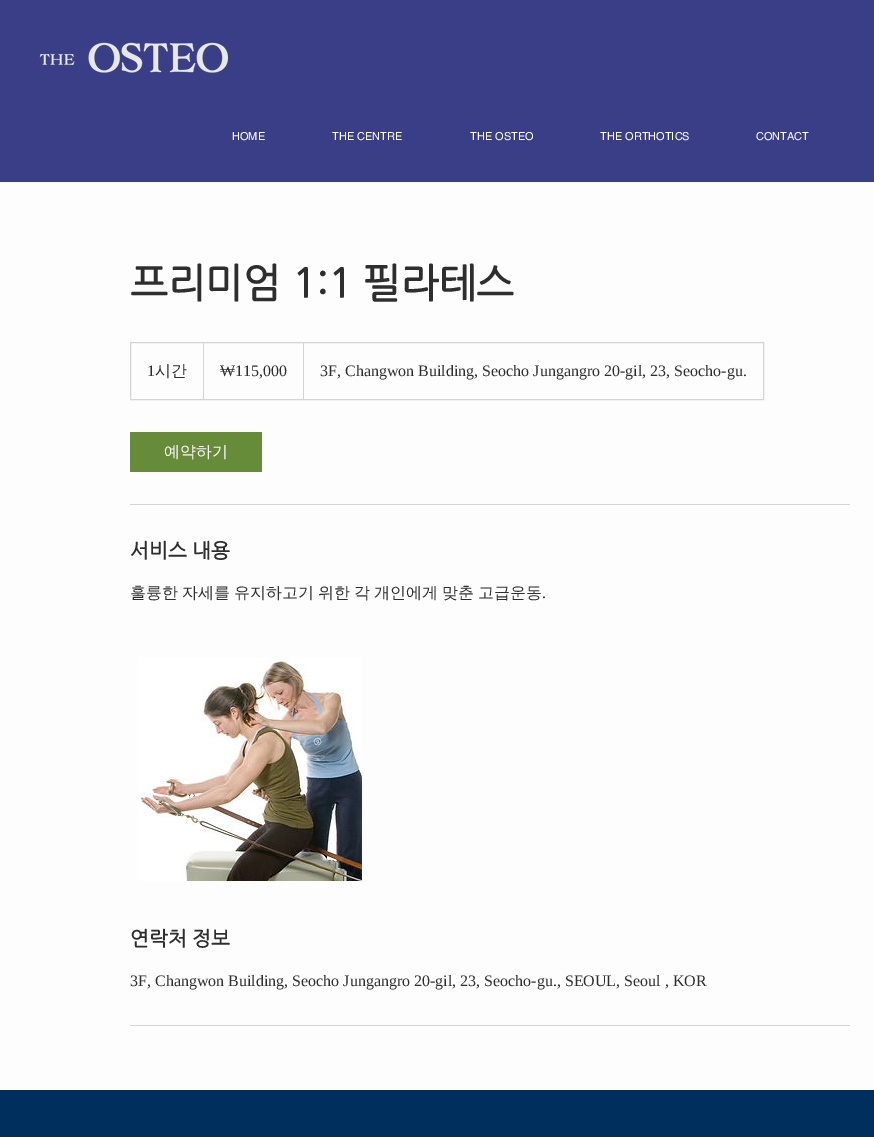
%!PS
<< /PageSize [874 1137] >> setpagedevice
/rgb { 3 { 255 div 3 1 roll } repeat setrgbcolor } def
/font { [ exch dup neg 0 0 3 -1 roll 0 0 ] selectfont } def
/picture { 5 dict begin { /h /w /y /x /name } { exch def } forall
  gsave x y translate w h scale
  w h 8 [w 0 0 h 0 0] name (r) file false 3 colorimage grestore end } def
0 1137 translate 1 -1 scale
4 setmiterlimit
254 253 253 rgb
0 0 874 1137 rectfill
58 62 134 rgb
0 0 874 182 rectfill
(img/1.rgb) 39 42 189 31 picture
212 212 212 rgb
130.5 342.5 633 57 rectstroke
203 399 moveto 203 342 lineto 204 343 lineto 204 399 lineto closepath fill
303 399 moveto 303 342 lineto 304 343 lineto 304 399 lineto closepath fill
103 140 57 rgb
130 432 132 40 rectfill
212 212 212 rgb
130 504 720 1 rectfill
(img/2.rgb) 138 657 224 224 picture
130 1025 720 1 rectfill
0 46 93 rgb
0 1090 874 47 rectfill
/helvetica-Regular 11 font
254 253 253 rgb
[
  [(HOME) 232 140]
  [(THE CENTRE) 332 140]
  [(THE OSTEO) 470 140]
  [(THE ORTHOTICS) 600 140]
  [(CONTACT) 756 140]
] { aload pop moveto show } forall
/NanumGothic-Bold 40 font
46 46 46 rgb
130 296 moveto (프리미엄 1:1 필라테스) show
/LiberationSerif-Regular 16 font
147 376 moveto (1) show
/WenQuanYiZenHei-Medium 16 font
155 376 moveto (시간) show
/LiberationSerif-Regular 16 font
220 376 moveto (₩115,000) show
320 376 moveto (3F, Changwon Building, Seocho Jungangro 20-gil, 23, Seocho-gu.) show
/WenQuanYiZenHei-Medium 16 font
254 253 253 rgb
164 457 moveto (예약하기) show
/NanumGothic-Bold 20 font
46 46 46 rgb
130 557 moveto (서비스 내용) show
/WenQuanYiZenHei-Medium 16 font
130 598 moveto -0.75 0 32 (훌륭한 자세를 유지하고기 위한 각 개인에게 맞춘 고급운동) widthshow
/LiberationSerif-Regular 16 font
542 598 moveto (.) show
/NanumGothic-Bold 20 font
130 945 moveto (연락처 정보) show
/LiberationSerif-Regular 16 font
130 986 moveto (3F, Changwon Building, Seocho Jungangro 20-gil, 23, Seocho-gu., SEOUL, Seoul , KOR) show
showpage
